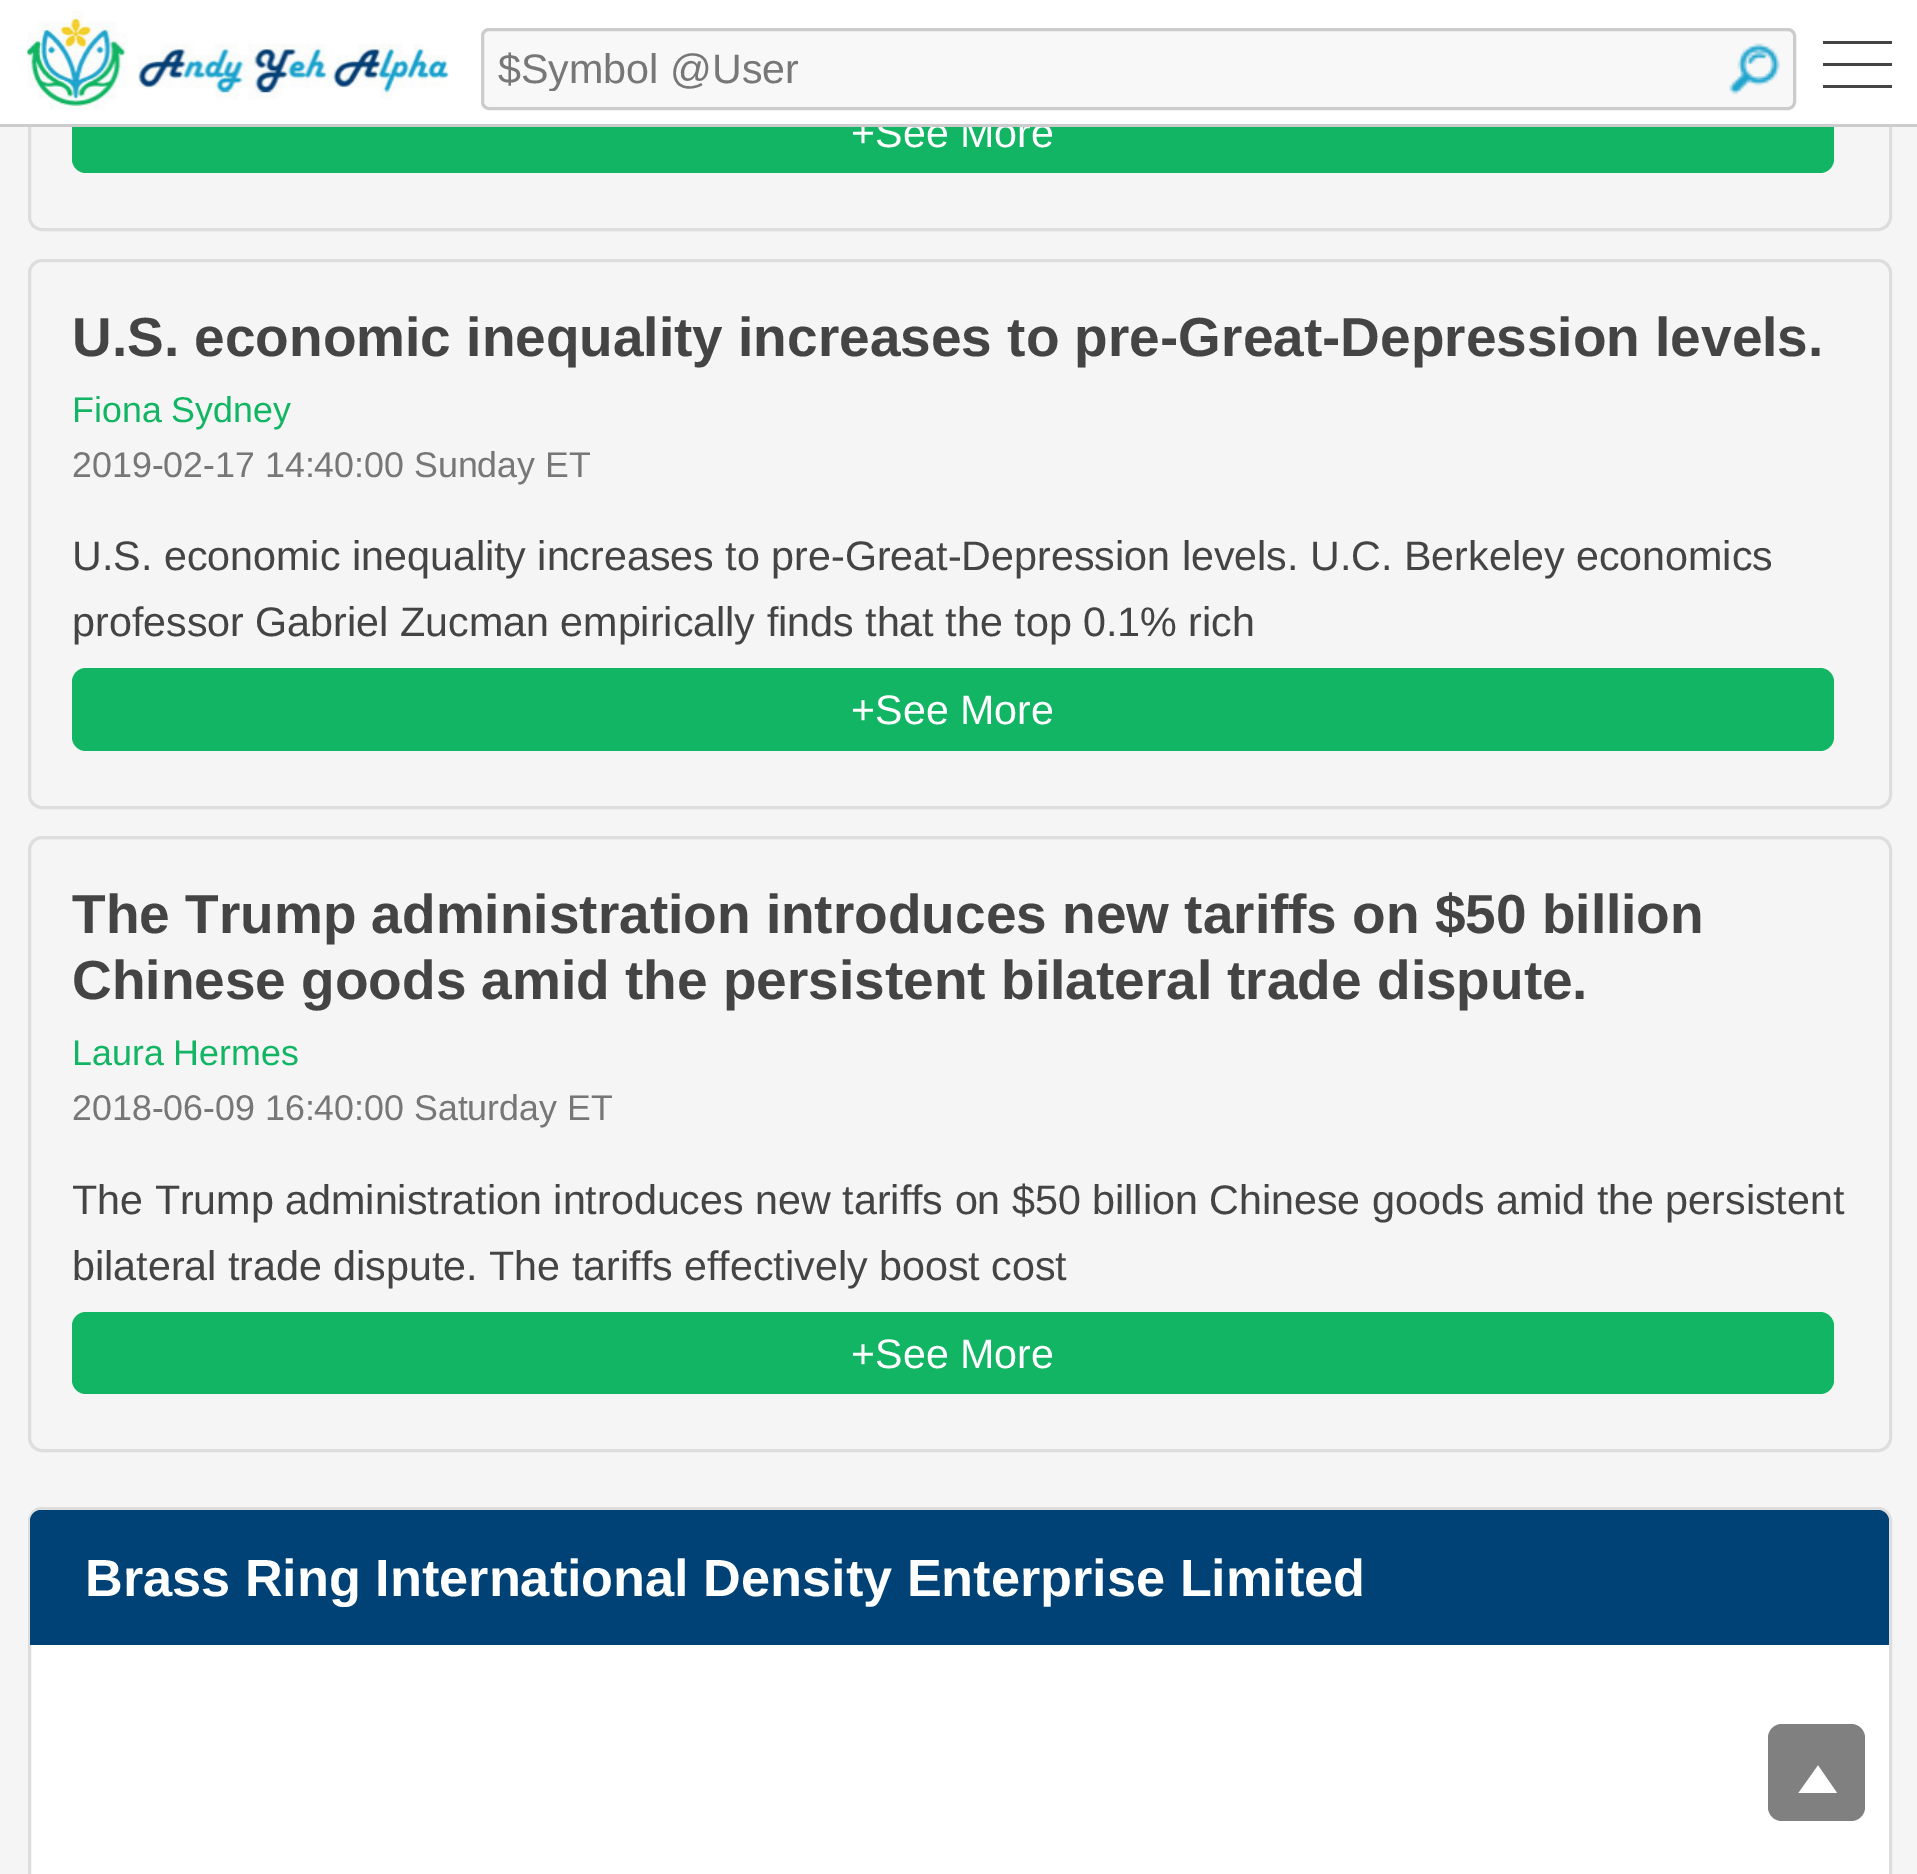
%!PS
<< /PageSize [1917 1874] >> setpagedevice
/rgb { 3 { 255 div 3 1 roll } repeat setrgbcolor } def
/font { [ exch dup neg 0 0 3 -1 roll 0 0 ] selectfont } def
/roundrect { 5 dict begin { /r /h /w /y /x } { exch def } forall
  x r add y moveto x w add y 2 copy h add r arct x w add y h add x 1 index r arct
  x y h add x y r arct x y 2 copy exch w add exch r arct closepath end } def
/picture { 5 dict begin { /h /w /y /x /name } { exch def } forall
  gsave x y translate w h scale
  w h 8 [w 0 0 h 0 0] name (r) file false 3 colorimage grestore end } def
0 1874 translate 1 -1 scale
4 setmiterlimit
245 245 245 rgb
0 0 1917 1874 rectfill
221 221 221 rgb
3 setlinewidth
29.5 -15.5 1861 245 12.5 roundrect stroke
18 181 99 rgb
72 91 1762 82 14 roundrect fill
255 255 255 rgb
0 0 1917 124 rectfill
(img/1.rgb) 27 11 422 99 picture
248 248 248 rgb
482.5 29.5 1312 79 6.5 roundrect gsave fill grestore
204 204 204 rgb
stroke
(img/2.rgb) 1729 43 52 52 picture
[
  [1823 41 69 3 68 68 68]
  [1823 63 69 3 68 68 68]
  [1823 85 69 3 68 68 68]
] { aload pop rgb rectfill } forall
221 221 221 rgb
29.5 260.5 1861 547 12.5 roundrect stroke
18 181 99 rgb
72 668 1762 83 14 roundrect fill
221 221 221 rgb
29.5 837.5 1861 613 12.5 roundrect stroke
18 181 99 rgb
72 1312 1762 82 14 roundrect fill
255 255 255 rgb
29.5 1508.5 1861 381 12.5 roundrect gsave fill grestore
221 221 221 rgb
stroke
0 66 118 rgb
41 1510 moveto 1878 1510 lineto 1884 1510 1889 1515 1889 1521 curveto 1889 1645 lineto 30 1645 lineto 30 1521 lineto 30 1515 35 1510 41 1510 curveto closepath fill
128 128 128 rgb
1768 1724 97 97 14 roundrect fill
255 255 255 rgb
1837 1793 moveto 1798.5 1793 lineto 1818 1765.5 lineto closepath fill
gsave
498 44 1213 47 rectclip
/LiberationSans-Regular 41.25 font
119 119 119 rgb
498 83 moveto ($Symbol @User) show
grestore
/LiberationSans-Regular 41.25 font
851 147 moveto (+See More) show
204 204 204 rgb
0 124 1917 3 rectfill
/LiberationSans-Bold 55 font
68 68 68 rgb
72 356 moveto (U.S. economic inequality increases to pre-Great-Depression levels.) show
/LiberationSans-Regular 35.75 font
18 181 99 rgb
72 422 moveto (Fiona Sydney) show
119 119 119 rgb
72 477 moveto (2019-02-17 14:40:00 Sunday ET) show
/LiberationSans-Regular 41.25 font
68 68 68 rgb
72 570 moveto (U.S. economic inequality increases to pre-Great-Depression levels. U.C. Berkeley economics) show
72 636 moveto (professor Gabriel Zucman empirically finds that the top 0.1% rich) show
255 255 255 rgb
851 724 moveto (+See More) show
/LiberationSans-Bold 55 font
68 68 68 rgb
72 933 moveto (The Trump administration introduces new tariffs on $50 billion) show
72 999 moveto (Chinese goods amid the persistent bilateral trade dispute.) show
/LiberationSans-Regular 35.75 font
18 181 99 rgb
72 1065 moveto (Laura Hermes) show
119 119 119 rgb
72 1120 moveto (2018-06-09 16:40:00 Saturday ET) show
/LiberationSans-Regular 41.25 font
68 68 68 rgb
72 1214 moveto (The Trump administration introduces new tariffs on $50 billion Chinese goods amid the persistent) show
72 1280 moveto (bilateral trade dispute. The tariffs effectively boost cost) show
255 255 255 rgb
851 1368 moveto (+See More) show
/LiberationSans-Bold 52.25 font
85 1596 moveto (Brass Ring International Density Enterprise Limited) show
showpage
